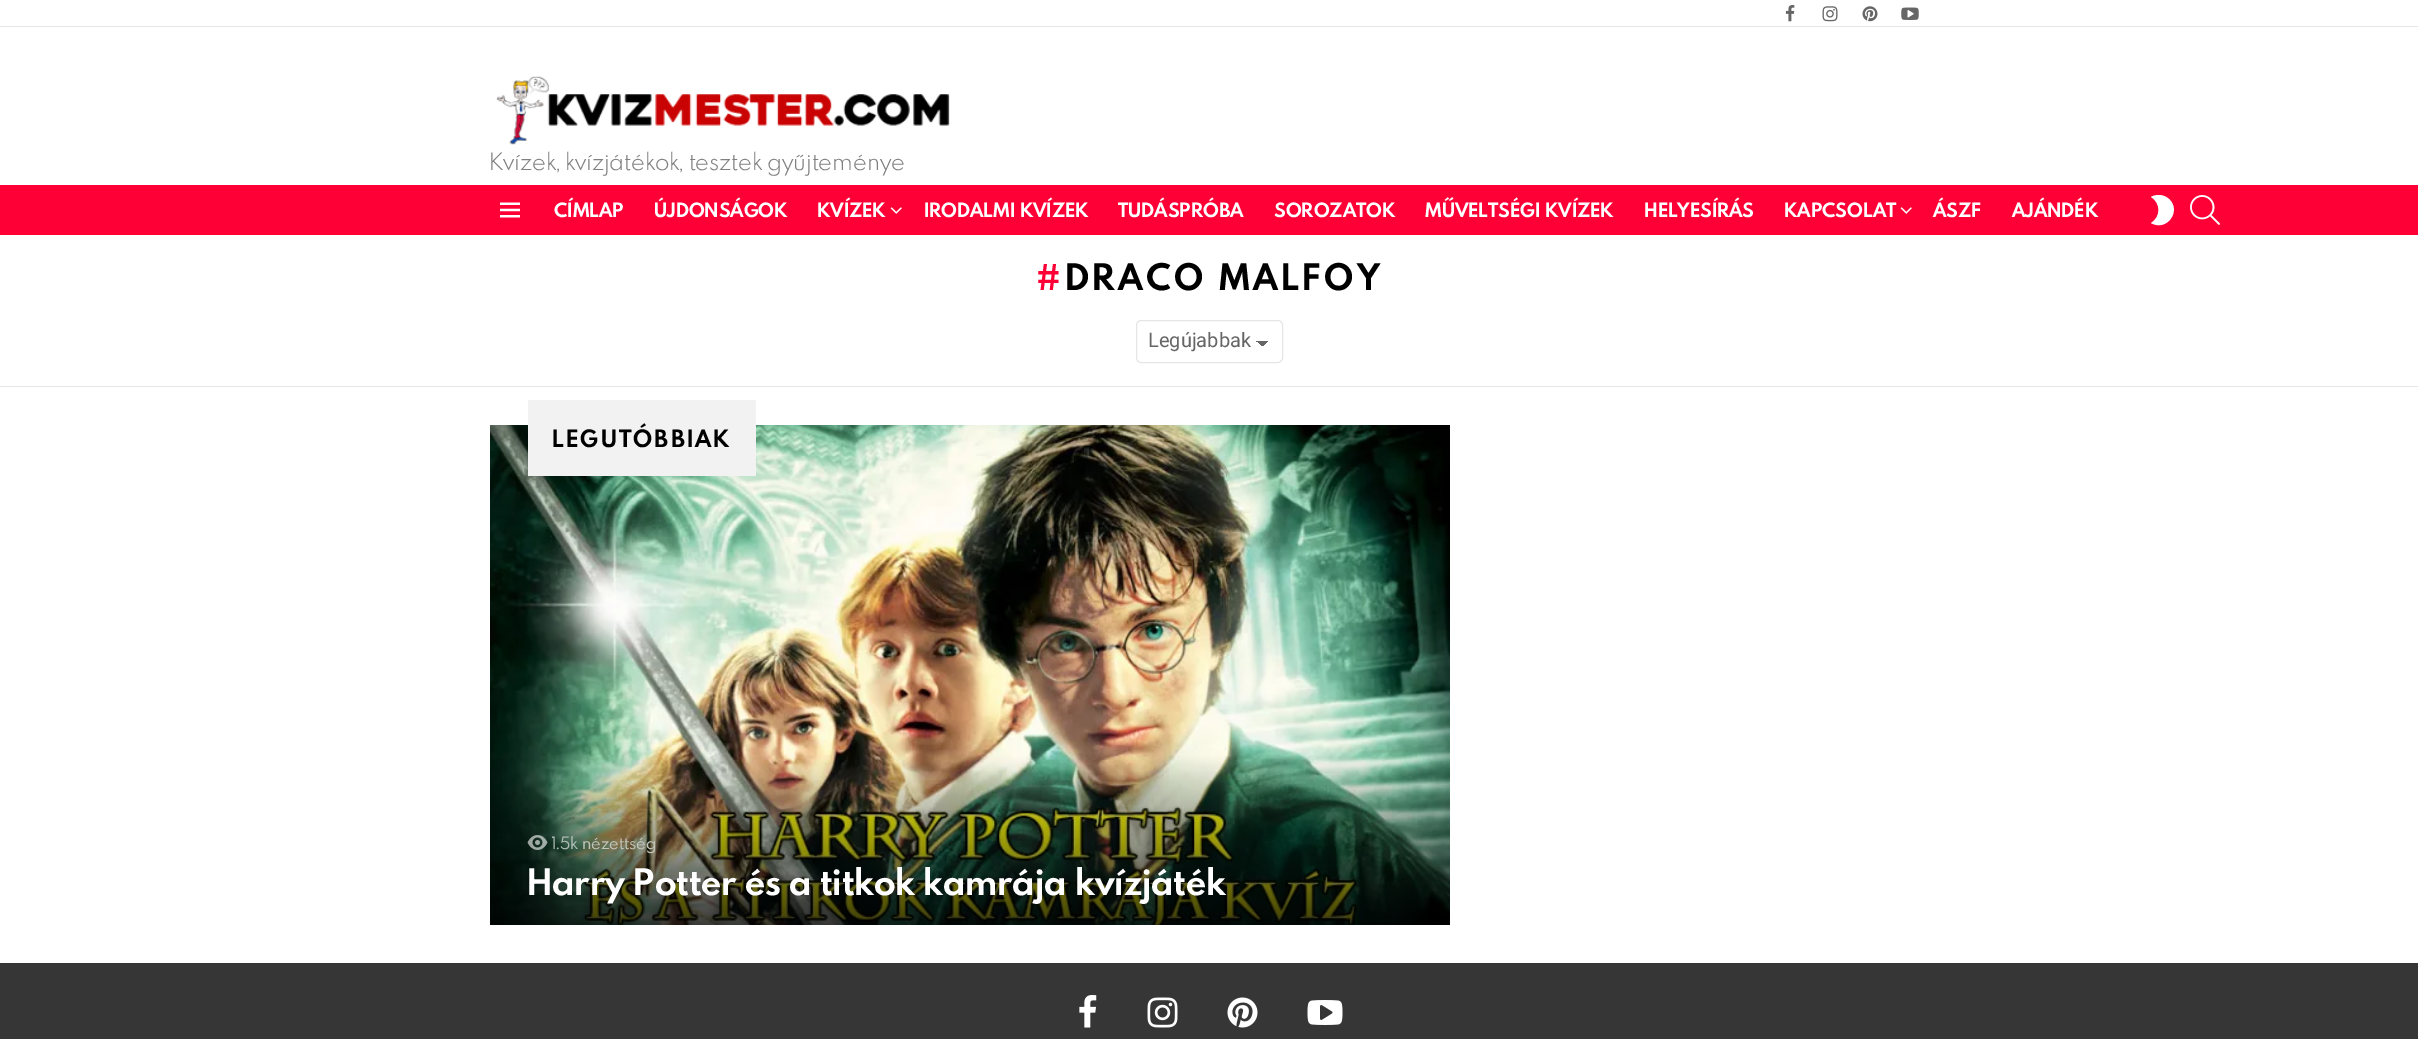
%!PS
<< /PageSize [2418 1039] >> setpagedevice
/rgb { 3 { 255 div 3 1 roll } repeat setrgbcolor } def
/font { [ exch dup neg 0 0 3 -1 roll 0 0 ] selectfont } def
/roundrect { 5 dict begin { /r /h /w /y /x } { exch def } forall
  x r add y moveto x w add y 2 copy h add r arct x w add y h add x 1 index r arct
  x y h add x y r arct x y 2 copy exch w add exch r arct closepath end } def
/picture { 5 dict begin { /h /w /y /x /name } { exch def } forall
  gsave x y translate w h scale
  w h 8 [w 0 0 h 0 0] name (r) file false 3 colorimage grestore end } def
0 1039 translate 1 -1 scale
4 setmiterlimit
255 255 255 rgb
0 0 2418 1039 rectfill
(img/1.rgb) 1785 5 10 17 picture
(img/2.rgb) 1822 6 16 16 picture
(img/3.rgb) 1862 6 16 16 picture
(img/4.rgb) 1901 7 18 13 picture
230 230 230 rgb
0 26 2418 1 rectfill
(img/5.rgb) 496 76 454 69 picture
255 0 54 rgb
0 185 2418 50 rectfill
(img/6.rgb) 500 202 20 16 picture
(img/7.rgb) 890 207 12 7 picture
(img/7.rgb) 1900 207 12 7 picture
255 255 255 rgb
2159 195 moveto 2156 195 2153.5 195.5 2151 197 curveto 2161 203 2161 217 2151 223 curveto 2166.5 232 2182 211 2169 199 curveto 2166 196.5 2162.5 195 2159 195 curveto closepath fill
(img/8.rgb) 2190 195 30 30 picture
gsave 1263 341 moveto 1269 341 lineto 1269 346 lineto 1263 346 lineto closepath clip newpath
<< /ShadingType 2 /ColorSpace /DeviceRGB /Coords [1263 341 1268 347] /Extend [true true] /Function << /FunctionType 3 /Domain [0 1] /Functions [<< /FunctionType 2 /Domain [0 1] /C0 [0.4 0.4 0.4] /C1 [0.4 0.4 0.4] /N 1 >> << /FunctionType 2 /Domain [0 1] /C0 [1 1 1] /C1 [1 1 1] /N 1 >>] /Bounds [0.5] /Encode [0 1 0 1] >> >> shfill grestore
gsave 1256 341 moveto 1263 341 lineto 1263 346 lineto 1256 346 lineto closepath clip newpath
<< /ShadingType 2 /ColorSpace /DeviceRGB /Coords [1257 347 1262 341] /Extend [true true] /Function << /FunctionType 3 /Domain [0 1] /Functions [<< /FunctionType 2 /Domain [0 1] /C0 [1 1 1] /C1 [1 1 1] /N 1 >> << /FunctionType 2 /Domain [0 1] /C0 [0.4 0.4 0.4] /C1 [0.4 0.4 0.4] /N 1 >>] /Bounds [0.5] /Encode [0 1 0 1] >> >> shfill grestore
230 230 230 rgb
1136.5 320.5 146 42 4.5 roundrect stroke
0 386 2418 1 rectfill
(img/9.rgb) 490 425 960 500 picture
242 242 242 rgb
528 400 228 76 rectfill
(img/10.rgb) 527 835 21 15 picture
54 54 54 rgb
0 963 2418 76 rectfill
(img/11.rgb) 1079 995 18 33 picture
(img/12.rgb) 1147 997 31 31 picture
(img/13.rgb) 1227 997 31 31 picture
(img/14.rgb) 1307 1000 36 25 picture
/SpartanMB-Light 21.25 font
128 128 128 rgb
489 170 moveto (Kvízek, kvízjátékok, tesztek gyűjteménye) show
/SpartanMB-Bold 17.5 font
255 255 255 rgb
[
  [(CÍMLAP) 554 217]
  [(ÚJDONSÁGOK) 654 217]
  [(KVÍZEK) 817 217]
  [(IRODALMI KVÍZEK) 924 217]
  [(TUDÁSPRÓBA) 1118 217]
  [(SOROZATOK) 1274 217]
  [(MŰVELTSÉGI KVÍZEK) 1425 217]
  [(HELYESÍRÁS) 1644 217]
  [(KAPCSOLAT) 1784 217]
  [(ÁSZF) 1933 217]
  [(AJÁNDÉK) 2012 217]
] { aload pop moveto show } forall
/SpartanMB-Bold 32.5 font
255 0 54 rgb
1036 290 moveto 3.25 0 (#) ashow
0 0 0 rgb
1065 290 moveto 3.25 0 (DRACO MALFOY) ashow
/Roboto-Regular 20 font
102 102 102 rgb
1148 347 moveto (Legújabbak) show
/SpartanMB-Bold 21.25 font
0 0 0 rgb
552 447 moveto 2.1 0 (LEGUTÓBBIAK) ashow
/SpartanMB-Regular 15 font
172 186 179 rgb
552 849 moveto (1.5k) show
195 197 186 rgb
582 849 moveto (nézettség) show
/SpartanMB-Bold 32.5 font
255 255 255 rgb
527 895 moveto (Harry Potter és a titkok kamrája kvízjáték) show
showpage
